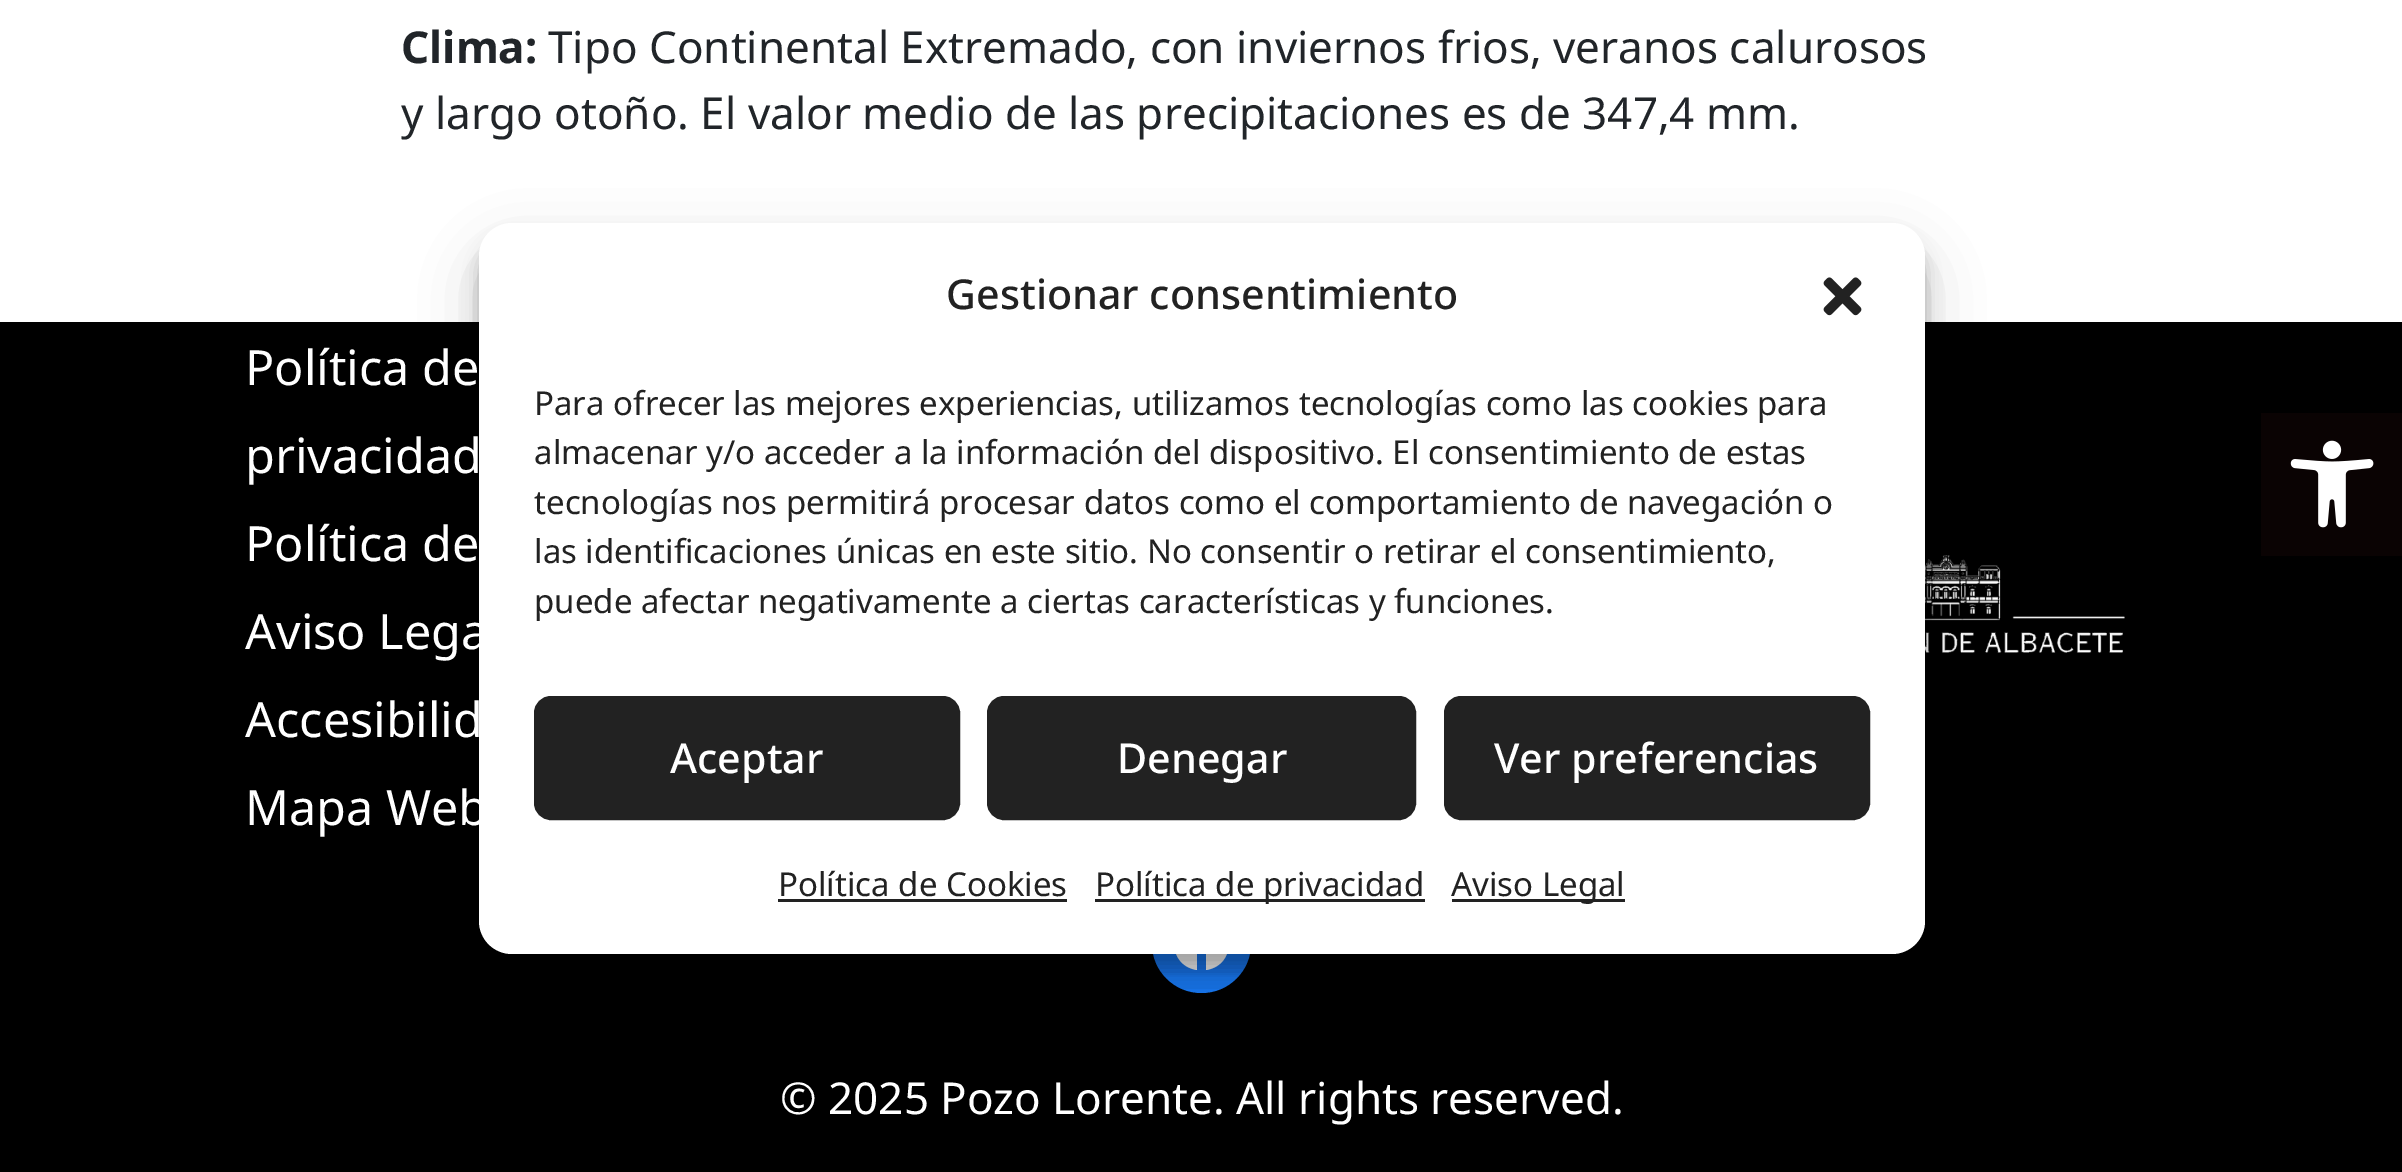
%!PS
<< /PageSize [2402 1172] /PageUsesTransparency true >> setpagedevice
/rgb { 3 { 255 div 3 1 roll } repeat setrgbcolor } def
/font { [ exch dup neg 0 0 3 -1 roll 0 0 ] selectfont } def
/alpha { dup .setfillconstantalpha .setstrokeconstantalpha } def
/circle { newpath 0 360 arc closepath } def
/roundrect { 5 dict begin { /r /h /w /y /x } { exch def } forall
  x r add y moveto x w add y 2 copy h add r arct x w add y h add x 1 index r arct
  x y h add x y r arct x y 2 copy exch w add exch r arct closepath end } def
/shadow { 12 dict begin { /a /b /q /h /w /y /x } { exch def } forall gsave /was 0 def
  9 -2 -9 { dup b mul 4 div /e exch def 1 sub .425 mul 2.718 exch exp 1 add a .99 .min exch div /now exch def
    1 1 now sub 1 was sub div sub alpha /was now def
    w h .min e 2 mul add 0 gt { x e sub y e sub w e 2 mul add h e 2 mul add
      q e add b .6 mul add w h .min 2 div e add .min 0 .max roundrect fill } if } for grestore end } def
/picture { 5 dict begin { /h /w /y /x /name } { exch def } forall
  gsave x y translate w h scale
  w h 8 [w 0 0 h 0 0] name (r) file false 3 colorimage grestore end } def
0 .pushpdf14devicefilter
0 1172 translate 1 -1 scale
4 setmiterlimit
255 255 255 rgb
0 0 2402 1172 rectfill
0 0 0 rgb
0 322 2402 850 rectfill
(img/1.rgb) 1925 555 200 98 picture
23 120 242 rgb
1201.5 943.5 49.5 circle fill
255 255 255 rgb
1202 916 moveto 1168 916 1164 965 1197 970 curveto 1197 951 lineto 1190 951 lineto 1190 943 lineto 1197 943 lineto 1198 935 lineto 1199 927 1207 926 1214 927 curveto 1214 934 lineto 1205 934 1206 936 1206 943 curveto 1214 943 lineto 1212 951 lineto 1206 951 lineto 1206 970 lineto 1239 965 1235 916 1202 916 curveto closepath fill
0 0 0 rgb
479 239 1446 732 33 8 0.23 shadow
479 250 1446 732 33 27.5 0.19 shadow
255 255 255 rgb
479 223 1446 731 33 roundrect fill
(img/2.rgb) 1823 277 39 39 picture
34 34 34 rgb
535.5 697.5 423 121 15.5 roundrect gsave fill grestore
3 setlinewidth
stroke
988.5 697.5 426 121 15.5 roundrect gsave fill grestore
stroke
1445.5 697.5 423 121 15.5 roundrect gsave fill grestore
stroke
[
  [778 899 289 3 34 34 34]
  [1095 899 330 3 34 34 34]
  [1452 899 173 3 34 34 34]
  [2261 413 141 143 10 3 3]
] { aload pop rgb rectfill } forall
(img/3.rgb) 2290 440 84 88 picture
/NotoSans-Bold 44 font
33 37 41 rgb
401 63 moveto (Clima:) show
/NotoSans-Regular 44 font
548 63 moveto (Tipo Continental Extremado, con inviernos frios, veranos calurosos) show
401 129 moveto (y largo otoño. El valor medio de las precipitaciones es de 347,4 mm.) show
/NotoSans-Regular 48.5 font
255 255 255 rgb
[
  [(Política de) 245 385]
  [(privacidad) 245 473]
  [(Política de) 245 561]
  [(Aviso Lega) 245 649]
  [(Accesibilid) 245 737]
  [(Mapa Web) 245 825]
] { aload pop moveto show } forall
/NotoSans-Regular 44 font
780 1114 moveto (© 2025 Pozo Lorente. All rights reserved.) show
/NotoSans-Medium 41.25 font
34 34 34 rgb
946 309 moveto (Gestionar consentimiento) show
/NotoSans-Regular 33 font
[
  [(Para ofrecer las mejores experiencias, utilizamos tecnologías como las cookies para) 534 415]
  [(almacenar y/o acceder a la información del dispositivo. El consentimiento de estas) 534 464]
  [(tecnologías nos permitirá procesar datos como el comportamiento de navegación o) 534 514]
  [(las identificaciones únicas en este sitio. No consentir o retirar el consentimiento,) 534 563]
  [(puede afectar negativamente a ciertas características y funciones.) 534 613]
] { aload pop moveto show } forall
/NotoSans-Medium 41.25 font
255 255 255 rgb
[
  [(Aceptar) 670 773]
  [(Denegar) 1117 773]
  [(Ver preferencias) 1494 773]
] { aload pop moveto show } forall
/NotoSans-Regular 33 font
34 34 34 rgb
[
  [(Política de Cookies) 778 896]
  [(Política de privacidad) 1095 896]
  [(Aviso Legal) 1451 896]
] { aload pop moveto show } forall
.poppdf14devicefilter showpage
